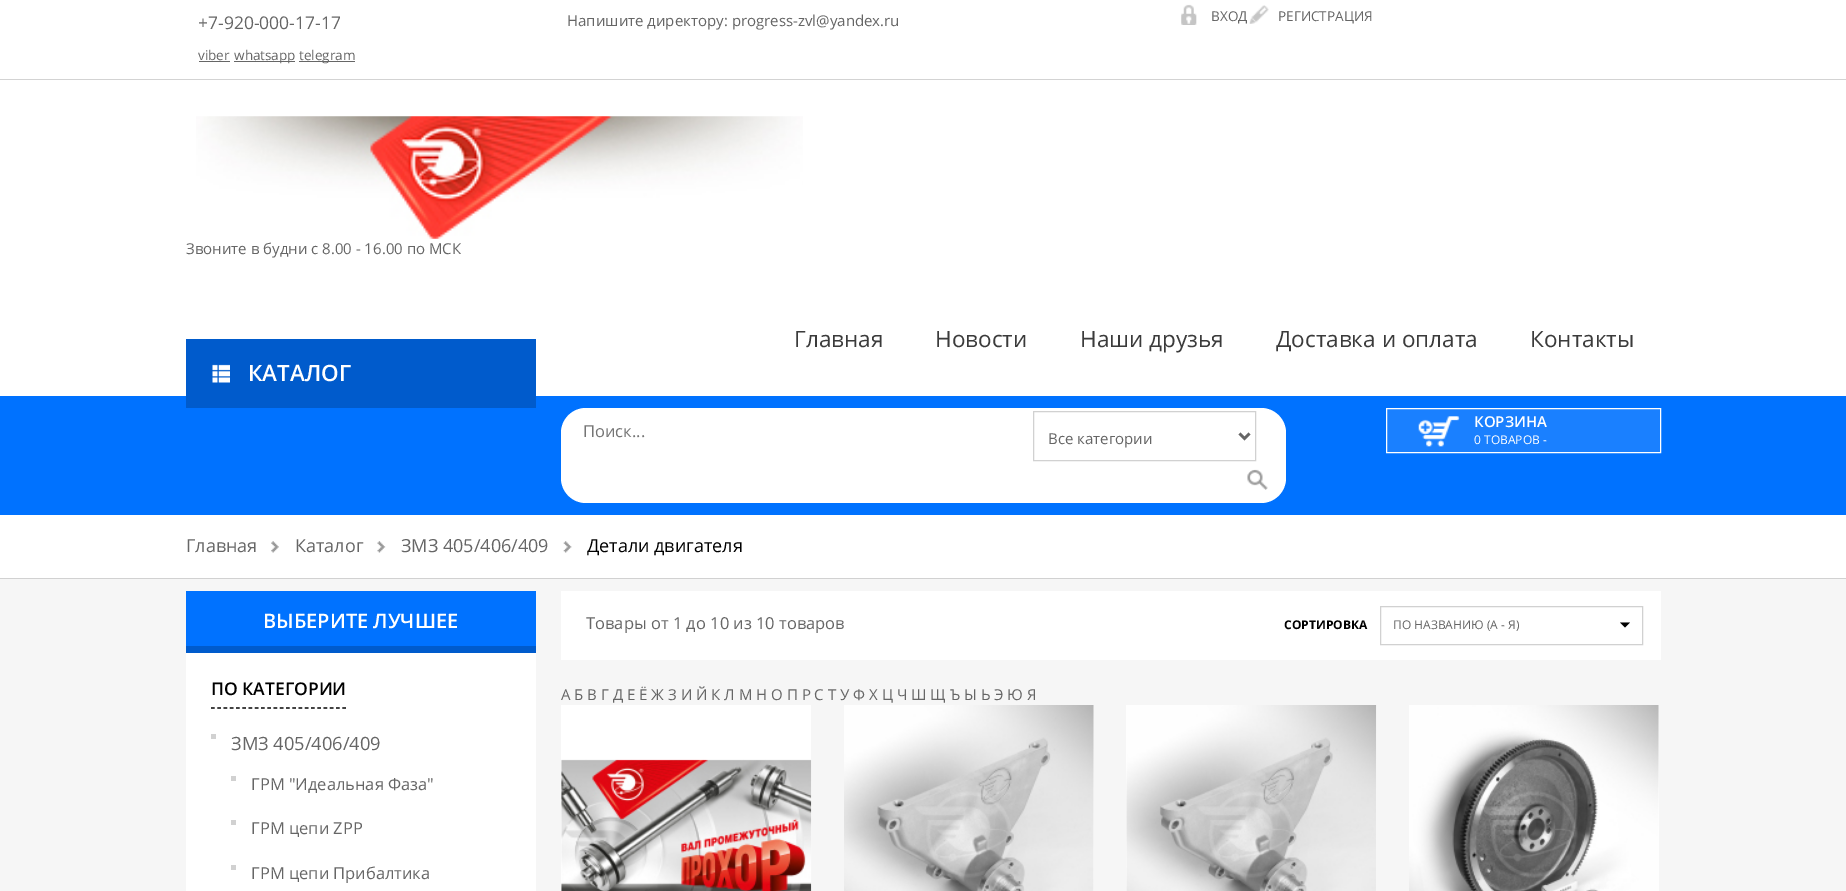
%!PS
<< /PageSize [1846 891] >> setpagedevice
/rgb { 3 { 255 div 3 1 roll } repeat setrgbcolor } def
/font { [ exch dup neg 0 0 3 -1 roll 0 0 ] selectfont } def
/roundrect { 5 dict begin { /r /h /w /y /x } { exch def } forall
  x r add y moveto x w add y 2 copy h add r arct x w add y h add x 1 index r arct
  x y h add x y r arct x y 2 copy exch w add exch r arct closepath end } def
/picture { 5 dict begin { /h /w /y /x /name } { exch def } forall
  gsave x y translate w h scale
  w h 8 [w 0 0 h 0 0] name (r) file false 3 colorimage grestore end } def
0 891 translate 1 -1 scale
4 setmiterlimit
246 246 246 rgb
0 0 1846 891 rectfill
[
  [0 0 1846 396 255 255 255]
  [0 79 1846 1 211 211 211]
  [199 61 31 1 102 102 102]
  [234 61 61 1 102 102 102]
  [299 61 56 1 102 102 102]
] { aload pop rgb rectfill } forall
(img/1.rgb) 1181 4 16 21 picture
(img/2.rgb) 1249 5 20 19 picture
(img/3.rgb) 196 116 607 123 picture
0 114 255 rgb
0 396 1846 119 rectfill
0 91 204 rgb
186 339 350 69 rectfill
(img/4.rgb) 212 364 18 19 picture
255 255 255 rgb
561 408 725 95 25 roundrect fill
209 209 209 rgb
1033.5 411.5 222 49 rectstroke
102 102 102 rgb
2.5 setlinewidth
1239.5 433.5 moveto 1244.5 438.5 lineto 1249.5 433.5 lineto stroke
(img/5.rgb) 1247 469 21 21 picture
26 128 255 rgb
1386.5 408.5 moveto 1660.5 408.5 lineto 1660.5 452.5 lineto 1386.5 452.5 lineto closepath gsave fill grestore
255 255 255 rgb
1 setlinewidth
stroke
(img/6.rgb) 1418 416 42 31 picture
0 515 1846 63 rectfill
209 209 209 rgb
0 578 1846 1 rectfill
(img/7.rgb) 271 541 8 12 picture
(img/8.rgb) 377 541 9 12 picture
(img/9.rgb) 563 541 9 12 picture
[
  [186 653 350 238 255 255 255]
  [186 591 350 55 0 114 255]
  [186 646 350 7 0 91 204]
] { aload pop rgb rectfill } forall
0 0 0 rgb
1.2 setlinewidth
[3.75 2.5] 0 setdash
211 708 moveto 346 708 lineto stroke
[
  [211 734 5 5 209 209 209]
  [231 776 5 5 209 209 209]
  [231 820 5 5 209 209 209]
  [231 865 5 5 209 209 209]
  [561 591 1100 69 255 255 255]
] { aload pop rgb rectfill } forall
209 209 209 rgb
1 setlinewidth
[] 0 setdash
1380.5 606.5 262 38 rectstroke
0 0 0 rgb
1620 622.5 moveto 1630 622.5 lineto 1625 627.5 lineto closepath fill
255 255 255 rgb
561 705 250 186 rectfill
(img/10.rgb) 561 759 251 132 picture
1093 705 1 186 rectfill
(img/11.rgb) 844 705 250 186 picture
1126 705 1 186 rectfill
(img/12.rgb) 1126 705 251 186 picture
1658 705 1 186 rectfill
(img/13.rgb) 1409 705 250 186 picture
/OpenSans-Regular 17.5 font
102 102 102 rgb
198 29 moveto (+7-920-000-17-17) show
/OpenSans-Regular 13.5 font
[
  [(viber) 198 60]
  [(whatsapp) 234 60]
  [(telegram) 299 60]
] { aload pop moveto show } forall
/OpenSans-Regular 15 font
567 26 moveto (Напишите директору: progress-zvl@yandex.ru) show
/OpenSans-Regular 13.5 font
1211 21 moveto (ВХОД) show
1278 21 moveto (РЕГИСТРАЦИЯ) show
/OpenSans-Regular 15 font
186 254 moveto (Звоните в будни с 8.00 - 16.00 по МСК) show
/OpenSans-Regular 22.5 font
59 59 59 rgb
[
  [(Главная) 794 347]
  [(Новости) 935 347]
  [(Наши друзья) 1080 347]
  [(Доставка и оплата) 1276 347]
  [(Контакты) 1530 347]
] { aload pop moveto show } forall
/OpenSans-SemiBold 22.5 font
255 255 255 rgb
248 381 moveto (КАТАЛОГ) show
/OpenSans-Regular 16.5 font
117 117 117 rgb
583 437 moveto (Поиск...) show
/OpenSans-Regular 15 font
102 102 102 rgb
1048 444 moveto (Все категории) show
/OpenSans-SemiBold 15 font
255 255 255 rgb
1474 427 moveto (КОРЗИНА) show
/OpenSans-Regular 12 font
1474 444 moveto (0 ТОВАРОВ -) show
/OpenSans-Regular 18 font
102 102 102 rgb
[
  [(Главная) 186 552]
  [(Каталог) 295 552]
  [(ЗМЗ 405/406/409) 401 552]
] { aload pop moveto show } forall
0 0 0 rgb
587 552 moveto (Детали двигателя) show
/OpenSans-SemiBold 20 font
255 255 255 rgb
263 628 moveto (ВЫБЕРИТЕ ЛУЧШЕЕ) show
/OpenSans-SemiBold 17.5 font
0 0 0 rgb
211 695 moveto (ПО КАТЕГОРИИ) show
/OpenSans-Regular 18.25 font
102 102 102 rgb
231 750 moveto (ЗМЗ 405/406/409) show
/OpenSans-Regular 16.5 font
[
  [(ГРМ "Идеальная Фаза") 251 790]
  [(ГРМ цепи ZPP) 251 834]
  [(ГРМ цепи Прибалтика) 251 879]
  [(Товары от 1 до 10 из 10 товаров) 586 629]
] { aload pop moveto show } forall
/OpenSans-Bold 12 font
0 0 0 rgb
1284 629 moveto (СОРТИРОВКА) show
/OpenSans-Regular 12 font
102 102 102 rgb
1393 629 moveto (ПО НАЗВАНИЮ \(А - Я\)) show
/OpenSans-Regular 15 font
561 700 moveto (А Б В Г Д Е Ё Ж З И Й К Л М Н О П Р С Т У Ф Х Ц Ч Ш Щ Ъ Ы Ь Э Ю Я) show
showpage
